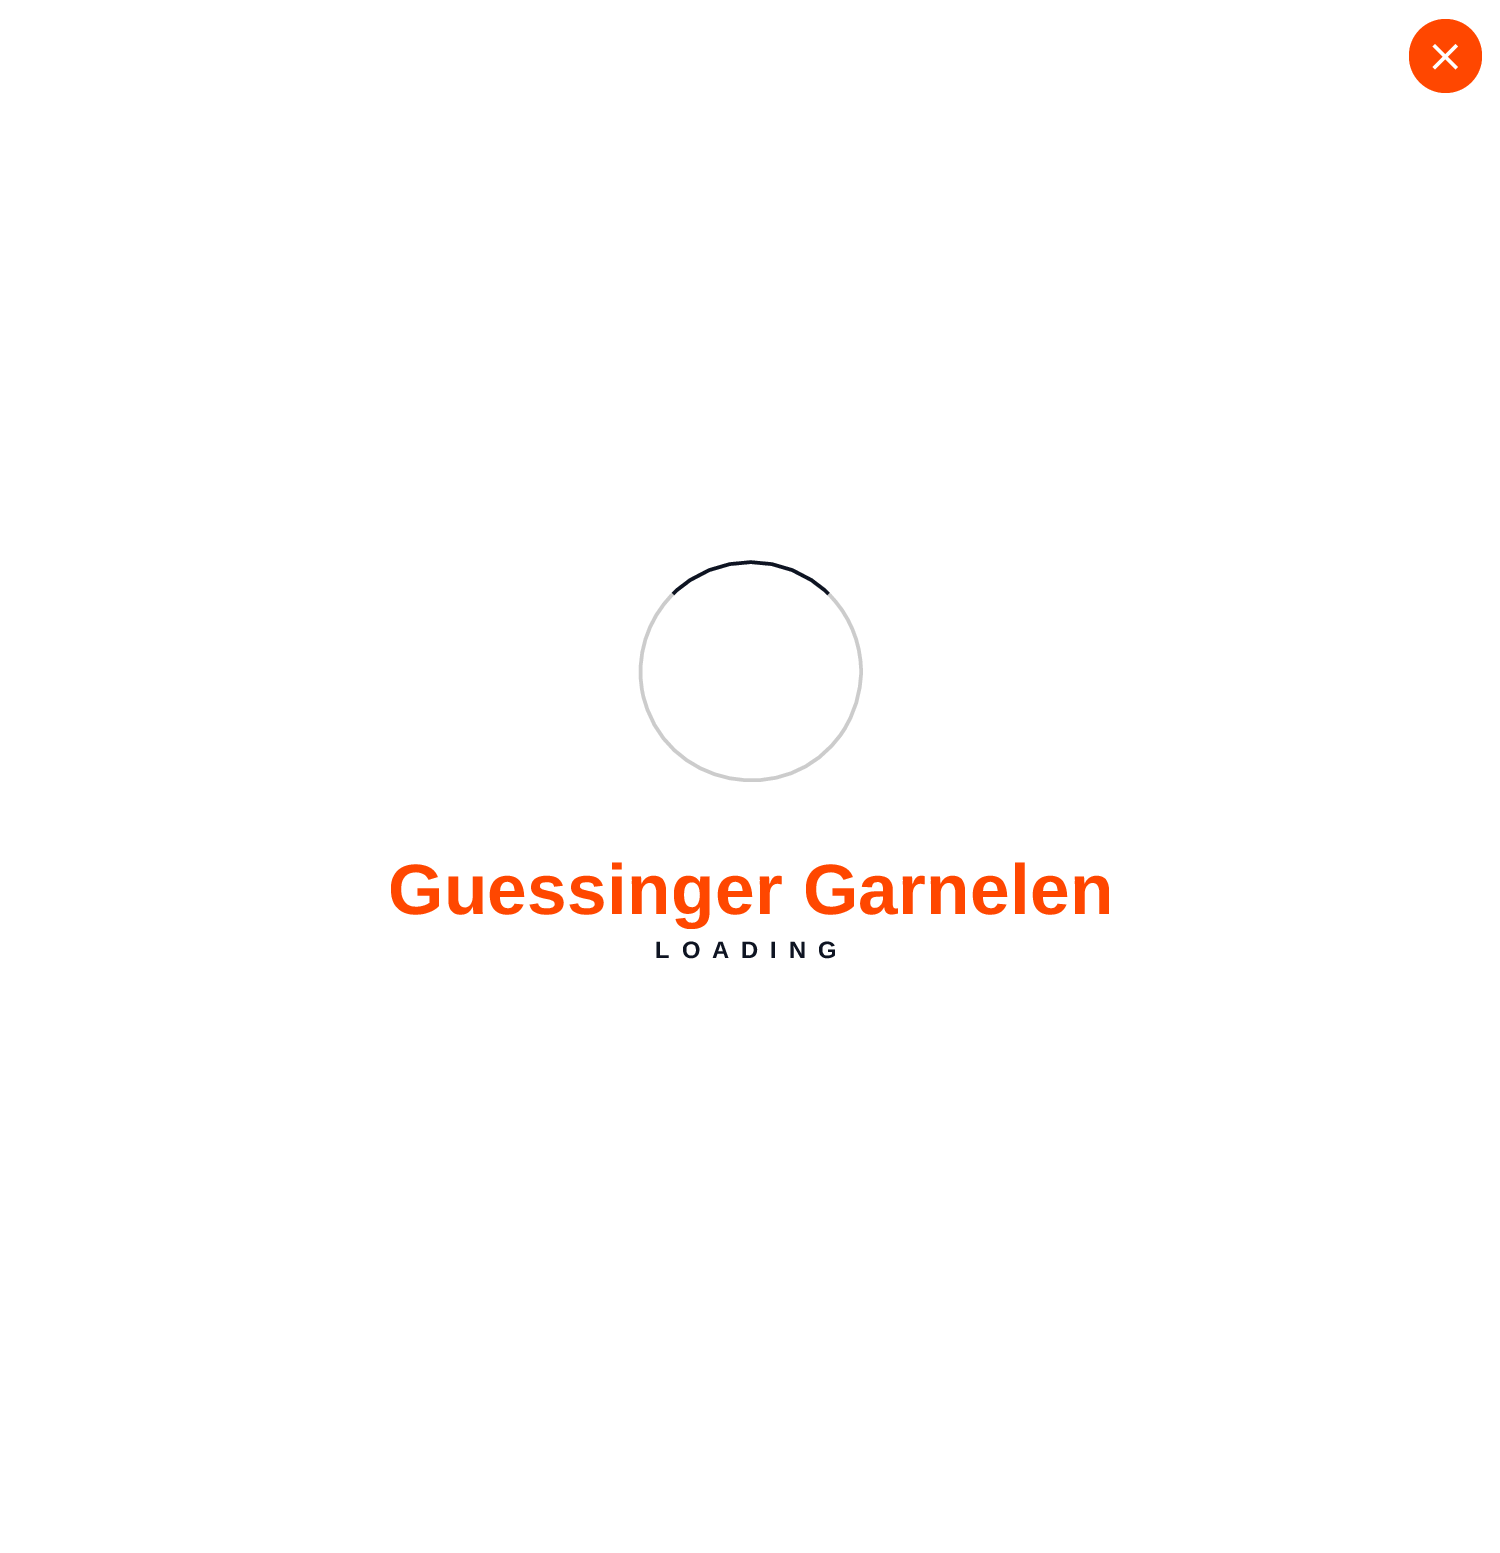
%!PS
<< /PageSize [1500 1553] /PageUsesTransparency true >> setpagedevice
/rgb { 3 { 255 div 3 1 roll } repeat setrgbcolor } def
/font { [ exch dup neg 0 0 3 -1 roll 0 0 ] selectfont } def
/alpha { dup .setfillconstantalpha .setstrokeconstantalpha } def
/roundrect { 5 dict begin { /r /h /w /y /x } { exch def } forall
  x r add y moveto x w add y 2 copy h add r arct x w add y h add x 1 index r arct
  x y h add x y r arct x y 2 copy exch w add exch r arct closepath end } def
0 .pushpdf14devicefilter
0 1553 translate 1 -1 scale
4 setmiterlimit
255 255 255 rgb
0 0 1500 1553 rectfill
255 71 0 rgb
1409 19 73 74 36.5 roundrect fill
255 255 255 rgb
1432.5 67 moveto 1455.5 44 lineto 1458 46.5 lineto 1435 69.5 lineto closepath fill
1455.5 69.5 moveto 1432.5 46.5 lineto 1435 44 lineto 1458 67 lineto closepath fill
14 20 34 rgb
3.5 setlinewidth
673 594 moveto 715.5 551.5 786 551.5 828.5 594 curveto stroke
0.2 alpha
0 0 0 rgb
828.5 594 moveto 849 614 861 642.5 861 671 curveto 861 692.5 854.5 714 842.5 732 curveto 788.5 812.5 662 788 642.5 692.5 curveto 635.5 657 647 619.5 673 594 curveto stroke
/LiberationSans-Bold 71.25 font
1 alpha
255 71 0 rgb
388 914 moveto 0.25 0 (Guessinger Garnelen) ashow
/LiberationSans-Bold 23.75 font
14 20 34 rgb
655 958 moveto 12 0 (LOADING) ashow
.poppdf14devicefilter showpage
